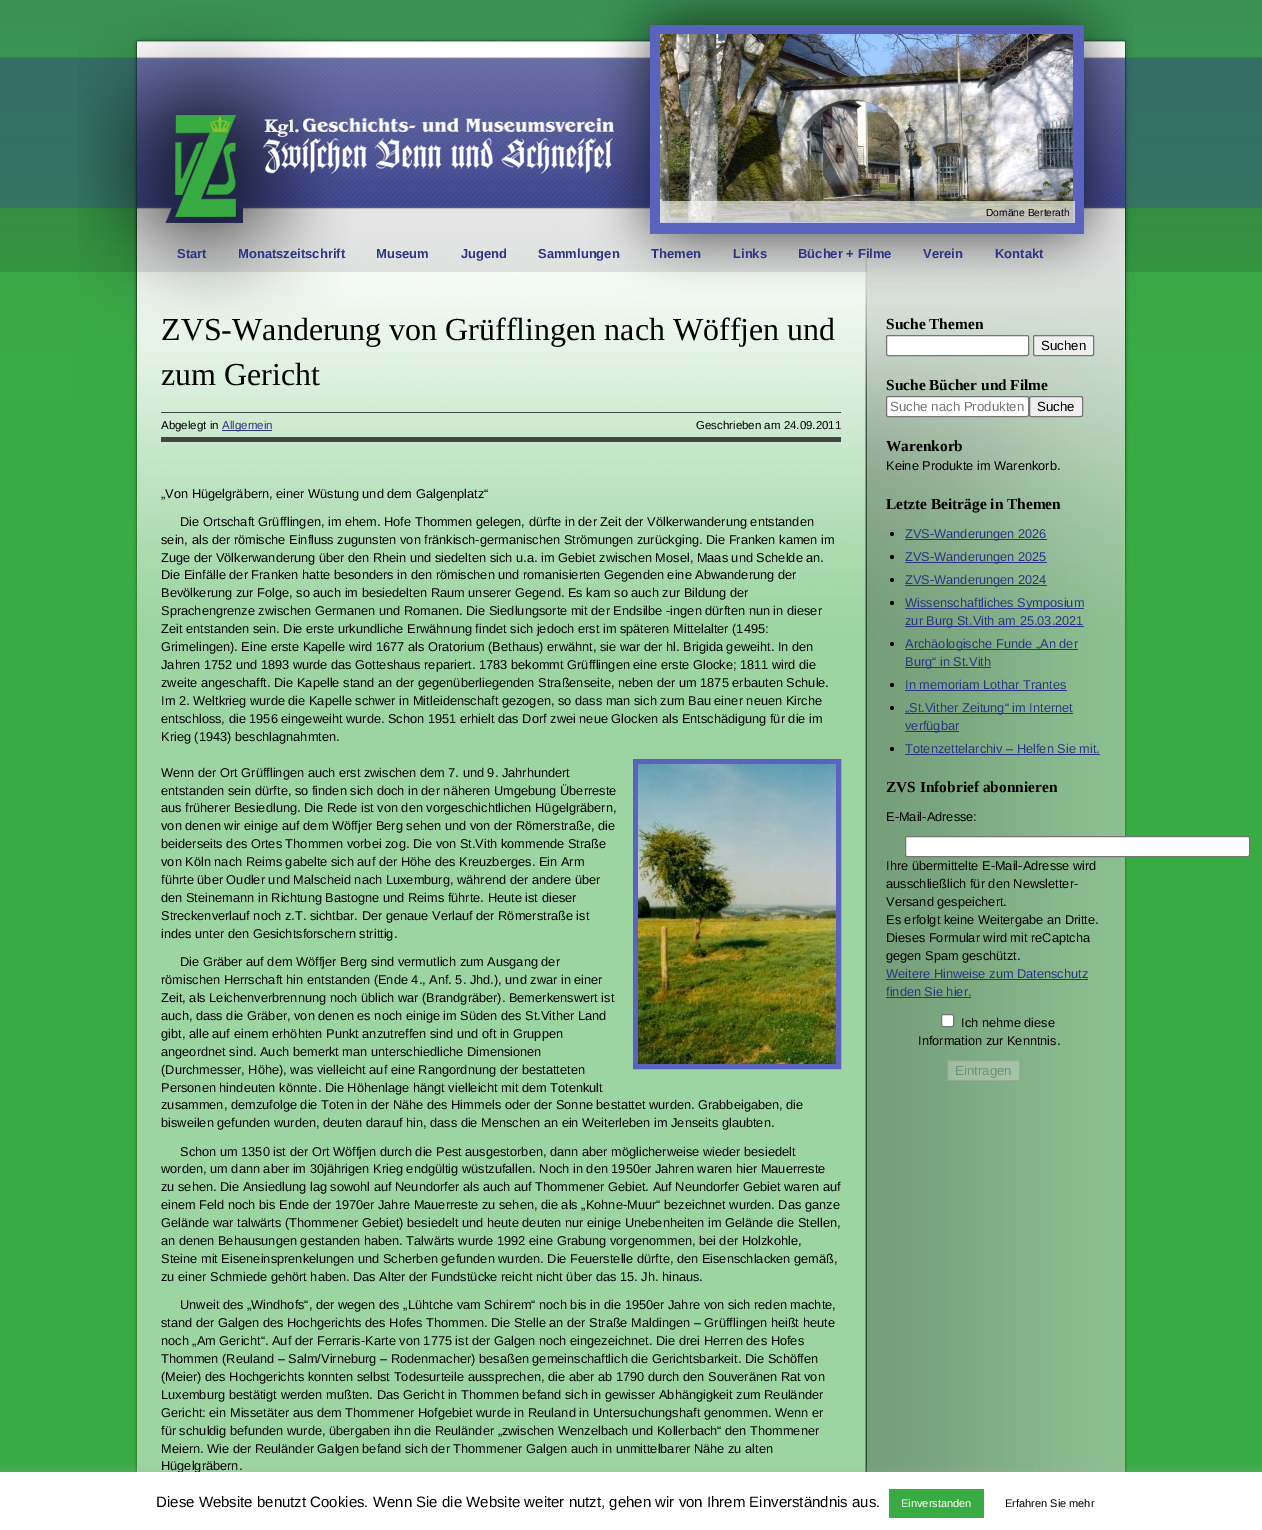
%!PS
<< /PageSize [1262 1530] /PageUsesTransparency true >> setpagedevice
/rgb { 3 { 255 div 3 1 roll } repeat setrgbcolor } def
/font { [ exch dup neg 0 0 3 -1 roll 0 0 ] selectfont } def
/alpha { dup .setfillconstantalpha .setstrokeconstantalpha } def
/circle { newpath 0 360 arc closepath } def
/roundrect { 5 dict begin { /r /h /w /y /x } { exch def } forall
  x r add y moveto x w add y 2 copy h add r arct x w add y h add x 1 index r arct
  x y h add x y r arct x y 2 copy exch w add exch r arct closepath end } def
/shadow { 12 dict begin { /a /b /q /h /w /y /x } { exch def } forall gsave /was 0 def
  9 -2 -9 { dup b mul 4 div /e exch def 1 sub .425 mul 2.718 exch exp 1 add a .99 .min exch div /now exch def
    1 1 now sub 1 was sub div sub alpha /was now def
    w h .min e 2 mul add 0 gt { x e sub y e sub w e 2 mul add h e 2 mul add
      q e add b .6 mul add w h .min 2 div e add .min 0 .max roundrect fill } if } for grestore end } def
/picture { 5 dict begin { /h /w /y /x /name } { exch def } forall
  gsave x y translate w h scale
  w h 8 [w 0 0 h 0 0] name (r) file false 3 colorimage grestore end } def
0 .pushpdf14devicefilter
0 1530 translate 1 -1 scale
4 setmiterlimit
57 171 67 rgb
0 0 1262 1530 rectfill
(img/1.rgb) 134 641 994 831 picture
(img/2.rgb) 0 0 1262 400 picture
(img/3.rgb) 78 0 1056 641 picture
(img/4.rgb) 660 34 413 188 picture
(img/5.rgb) 660 201 415 22 picture
[
  [161 412 680 1 69 69 69]
  [161 437 680 5 69 69 69]
  [222 430 50 1 44 52 132]
] { aload pop rgb rectfill } forall
90 99 190 rgb
5 setlinewidth
635.5 761.5 203 305 rectstroke
(img/6.rgb) 638 764 198 300 picture
255 255 255 rgb
886.5 335.5 142 20 1.5 roundrect gsave fill grestore
118 118 118 rgb
1 setlinewidth
stroke
239 239 239 rgb
1033.5 335.5 60 20 1.5 roundrect gsave fill grestore
118 118 118 rgb
stroke
255 255 255 rgb
886.5 396.5 142 20 1.5 roundrect gsave fill grestore
118 118 118 rgb
stroke
239 239 239 rgb
1029.5 396.5 53 20 1.5 roundrect gsave fill grestore
118 118 118 rgb
stroke
0 0 0 rgb
892 534 2 circle fill
44 52 132 rgb
905 539 142 1 rectfill
0 0 0 rgb
892 557 2 circle fill
44 52 132 rgb
905 562 142 1 rectfill
0 0 0 rgb
892 580 2 circle fill
44 52 132 rgb
905 585 142 1 rectfill
0 0 0 rgb
892 603 2 circle fill
44 52 132 rgb
905 608 179 1 rectfill
905 626 179 1 rectfill
0 0 0 rgb
892 644 2 circle fill
44 52 132 rgb
905 649 173 1 rectfill
905 667 86 1 rectfill
0 0 0 rgb
892 685 2 circle fill
44 52 132 rgb
905 690 162 1 rectfill
0 0 0 rgb
892 708 2 circle fill
44 52 132 rgb
905 713 168 1 rectfill
905 731 54 1 rectfill
0 0 0 rgb
892 749 2 circle fill
44 52 132 rgb
905 754 195 1 rectfill
255 255 255 rgb
905.5 836.5 344 20 1.5 roundrect gsave fill grestore
118 118 118 rgb
stroke
44 52 132 rgb
886 979 202 1 rectfill
886 997 85 1 rectfill
255 255 255 rgb
941.5 1014.5 12 12 1.5 roundrect gsave fill grestore
118 118 118 rgb
stroke
0.3 alpha
239 239 239 rgb
947 1060 73 21 2 roundrect fill
118 118 118 rgb
947.5 1060.5 72 20 1.5 roundrect stroke
1 alpha
172 171 171 rgb
0 1471 1262 58 0 5 0.3 shadow
/LiberationSans-Regular 10.25 font
0 0 0 rgb
986 216 moveto (Domäne Berterath) show
/LiberationSans-Bold 13 font
44 52 132 rgb
[
  [(Start) 177 258]
  [(Monatszeitschrift) 238 258]
  [(Museum) 376 258]
  [(Jugend) 461 258]
  [(Sammlungen) 538 258]
  [(Themen) 651 258]
  [(Links) 733 258]
  [(Bücher + Filme) 798 258]
  [(Verein) 923 258]
  [(Kontakt) 995 258]
] { aload pop moveto show } forall
/LiberationSerif-Regular 32 font
0 0 0 rgb
161 340 moveto (ZVS-Wanderung von Grüfflingen nach Wöffjen und) show
161 385 moveto (zum Gericht) show
/LiberationSans-Regular 11.5 font
161 429 moveto (Abgelegt in) show
44 52 132 rgb
222 429 moveto (Allgemein) show
0 0 0 rgb
696 429 moveto (Geschrieben am 24.09.2011) show
/LiberationSans-Regular 12.8 font
[
  [(„Von Hügelgräbern, einer Wüstung und dem Galgenplatz“) 161 498]
  [(Die Ortschaft Grüfflingen, im ehem. Hofe Thommen gelegen, dürfte in der Zeit der Völkerwanderung entstanden) 180 526]
  [(sein, als der römische Einfluss zugunsten von fränkisch-germanischen Strömungen zurückging. Die Franken kamen im) 161 544]
  [(Zuge der Völkerwanderung über den Rhein und siedelten sich u.a. im Gebiet zwischen Mosel, Maas und Schelde an.) 161 562]
  [(Die Einfälle der Franken hatte besonders in den römischen und romanisierten Gegenden eine Abwanderung der) 161 579]
  [(Bevölkerung zur Folge, so auch im besiedelten Raum unserer Gegend. Es kam so auch zur Bildung der) 161 597]
  [(Sprachengrenze zwischen Germanen und Romanen. Die Siedlungsorte mit der Endsilbe -ingen dürften nun in dieser) 161 615]
  [(Zeit entstanden sein. Die erste urkundliche Erwähnung findet sich jedoch erst im späteren Mittelalter \(1495:) 161 633]
  [(Grimelingen\). Eine erste Kapelle wird 1677 als Oratorium \(Bethaus\) erwähnt, sie war der hl. Brigida geweiht. In den) 161 651]
  [(Jahren 1752 und 1893 wurde das Gotteshaus repariert. 1783 bekommt Grüfflingen eine erste Glocke; 1811 wird die) 161 669]
  [(zweite angeschafft. Die Kapelle stand an der gegenüberliegenden Straßenseite, neben der um 1875 erbauten Schule.) 161 687]
  [(Im 2. Weltkrieg wurde die Kapelle schwer in Mitleidenschaft gezogen, so dass man sich zum Bau einer neuen Kirche) 161 705]
  [(entschloss, die 1956 eingeweiht wurde. Schon 1951 erhielt das Dorf zwei neue Glocken als Entschädigung für die im) 161 723]
  [(Krieg \(1943\) beschlagnahmten.) 161 741]
  [(Wenn der Ort Grüfflingen auch erst zwischen dem 7. und 9. Jahrhundert) 161 777]
  [(entstanden sein dürfte, so finden sich doch in der näheren Umgebung Überreste) 161 795]
  [(aus früherer Besiedlung. Die Rede ist von den vorgeschichtlichen Hügelgräbern,) 161 812]
  [(von denen wir einige auf dem Wöffjer Berg sehen und von der Römerstraße, die) 161 830]
  [(beiderseits des Ortes Thommen vorbei zog. Die von St.Vith kommende Straße) 161 848]
  [(von Köln nach Reims gabelte sich auf der Höhe des Kreuzberges. Ein Arm) 161 866]
  [(führte über Oudler und Malscheid nach Luxemburg, während der andere über) 161 884]
  [(den Steinemann in Richtung Bastogne und Reims führte. Heute ist dieser) 161 902]
  [(Streckenverlauf noch z.T. sichtbar. Der genaue Verlauf der Römerstraße ist) 161 920]
  [(indes unter den Gesichtsforschern strittig.) 161 938]
  [(Die Gräber auf dem Wöffjer Berg sind vermutlich zum Ausgang der) 180 966]
  [(römischen Herrschaft hin entstanden \(Ende 4., Anf. 5. Jhd.\), und zwar in einer) 161 984]
  [(Zeit, als Leichenverbrennung noch üblich war \(Brandgräber\). Bemerkenswert ist) 161 1002]
  [(auch, dass die Gräber, von denen es noch einige im Süden des St.Vither Land) 161 1020]
  [(gibt, alle auf einem erhöhten Punkt anzutreffen sind und oft in Gruppen) 161 1038]
  [(angeordnet sind. Auch bemerkt man unterschiedliche Dimensionen) 161 1056]
  [(\(Durchmesser, Höhe\), was vielleicht auf eine Rangordnung der bestatteten) 161 1074]
  [(Personen hindeuten könnte. Die Höhenlage hängt vielleicht mit dem Totenkult) 161 1092]
  [(zusammen, demzufolge die Toten in der Nähe des Himmels oder der Sonne bestattet wurden. Grabbeigaben, die) 161 1109]
  [(bisweilen gefunden wurden, deuten darauf hin, dass die Menschen an ein Weiterleben im Jenseits glaubten.) 161 1127]
  [(Schon um 1350 ist der Ort Wöffjen durch die Pest ausgestorben, dann aber möglicherweise wieder besiedelt) 180 1156]
  [(worden, um dann aber im 30jährigen Krieg endgültig wüstzufallen. Noch in den 1950er Jahren waren hier Mauerreste) 161 1173]
  [(zu sehen. Die Ansiedlung lag sowohl auf Neundorfer als auch auf Thommener Gebiet. Auf Neundorfer Gebiet waren auf) 161 1191]
  [(einem Feld noch bis Ende der 1970er Jahre Mauerreste zu sehen, die als „Kohne-Muur“ bezeichnet wurden. Das ganze) 161 1209]
  [(Gelände war talwärts \(Thommener Gebiet\) besiedelt und heute deuten nur einige Unebenheiten im Gelände die Stellen,) 161 1227]
  [(an denen Behausungen gestanden haben. Talwärts wurde 1992 eine Grabung vorgenommen, bei der Holzkohle,) 161 1245]
  [(Steine mit Eiseneinsprenkelungen und Scherben gefunden wurden. Die Feuerstelle dürfte, den Eisenschlacken gemäß,) 161 1263]
  [(zu einer Schmiede gehört haben. Das Alter der Fundstücke reicht nicht über das 15. Jh. hinaus.) 161 1281]
  [(Unweit des „Windhofs“, der wegen des „Lühtche vam Schirem“ noch bis in die 1950er Jahre von sich reden machte,) 180 1309]
  [(stand der Galgen des Hochgerichts des Hofes Thommen. Die Stelle an der Straße Maldingen – Grüfflingen heißt heute) 161 1327]
  [(noch „Am Gericht“. Auf der Ferraris-Karte von 1775 ist der Galgen noch eingezeichnet. Die drei Herren des Hofes) 161 1345]
  [(Thommen \(Reuland – Salm/Virneburg – Rodenmacher\) besaßen gemeinschaftlich die Gerichtsbarkeit. Die Schöffen) 161 1363]
  [(\(Meier\) des Hochgerichts konnten selbst Todesurteile aussprechen, die aber ab 1790 durch den Souveränen Rat von) 161 1381]
  [(Luxemburg bestätigt werden mußten. Das Gericht in Thommen befand sich in gewisser Abhängigkeit zum Reuländer) 161 1399]
  [(Gericht: ein Missetäter aus dem Thommener Hofgebiet wurde in Reuland in Untersuchungshaft genommen. Wenn er) 161 1417]
  [(für schuldig befunden wurde, übergaben ihn die Reuländer „zwischen Wenzelbach und Kollerbach“ den Thommener) 161 1435]
  [(Meiern. Wie der Reuländer Galgen befand sich der Thommener Galgen auch in unmittelbarer Nähe zu alten) 161 1453]
  [(Hügelgräbern.) 161 1470]
] { aload pop moveto show } forall
/LiberationSerif-Bold 15.4 font
886 329 moveto (Suche Themen) show
/LiberationSans-Regular 13.25 font
1041 350 moveto (Suchen) show
/LiberationSerif-Bold 15.4 font
886 390 moveto (Suche Bücher und Filme) show
/LiberationSans-Regular 13.25 font
117 117 117 rgb
890 411 moveto (Suche nach Produkten) show
0 0 0 rgb
1037 411 moveto (Suche) show
/LiberationSerif-Bold 15.4 font
886 451 moveto (Warenkorb) show
/LiberationSans-Regular 12.8 font
886 470 moveto (Keine Produkte im Warenkorb.) show
/LiberationSerif-Bold 15.4 font
886 509 moveto (Letzte Beiträge in Themen) show
/LiberationSans-Regular 12.8 font
44 52 132 rgb
[
  [(ZVS-Wanderungen 2026) 905 538]
  [(ZVS-Wanderungen 2025) 905 561]
  [(ZVS-Wanderungen 2024) 905 584]
  [(Wissenschaftliches Symposium) 905 607]
  [(zur Burg St.Vith am 25.03.2021) 905 625]
  [(Archäologische Funde „An der) 905 648]
  [(Burg“ in St.Vith) 905 666]
  [(In memoriam Lothar Trantes) 905 689]
  [(„St.Vither Zeitung“ im Internet) 905 712]
  [(verfügbar) 905 730]
  [(Totenzettelarchiv – Helfen Sie mit.) 905 753]
] { aload pop moveto show } forall
/LiberationSerif-Bold 15.4 font
0 0 0 rgb
886 792 moveto (ZVS Infobrief abonnieren) show
/LiberationSans-Regular 12.8 font
[
  [(E-Mail-Adresse:) 886 821]
  [(Ihre übermittelte E-Mail-Adresse wird) 886 870]
  [(ausschließlich für den Newsletter-) 886 888]
  [(Versand gespeichert.) 886 906]
  [(Es erfolgt keine Weitergabe an Dritte.) 886 924]
  [(Dieses Formular wird mit reCaptcha) 886 942]
  [(gegen Spam geschützt.) 886 960]
] { aload pop moveto show } forall
44 52 132 rgb
886 978 moveto (Weitere Hinweise zum Datenschutz) show
886 996 moveto (finden Sie hier.) show
0 0 0 rgb
961 1027 moveto (Ich nehme diese) show
918 1045 moveto (Information zur Kenntnis.) show
/LiberationSans-Regular 13.25 font
117 140 119 rgb
955 1075 moveto (Eintragen) show
255 255 255 rgb
0 1472 1262 58 rectfill
/LiberationSans-Regular 15 font
0 0 0 rgb
156 1507 moveto (Diese Website benutzt Cookies. Wenn Sie die Website weiter nutzt, gehen wir von Ihrem Einverständnis aus.) show
56 171 67 rgb
889 1489 95 29 rectfill
/LiberationSans-Regular 11 font
255 255 255 rgb
901 1507 moveto (Einverstanden) show
0 0 0 rgb
1005 1507 moveto (Erfahren Sie mehr) show
.poppdf14devicefilter showpage
